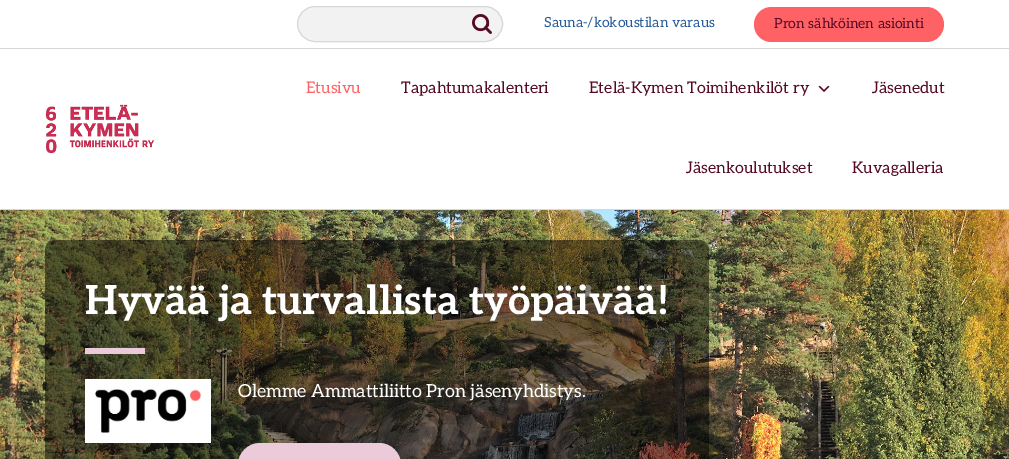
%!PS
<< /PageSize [1009 459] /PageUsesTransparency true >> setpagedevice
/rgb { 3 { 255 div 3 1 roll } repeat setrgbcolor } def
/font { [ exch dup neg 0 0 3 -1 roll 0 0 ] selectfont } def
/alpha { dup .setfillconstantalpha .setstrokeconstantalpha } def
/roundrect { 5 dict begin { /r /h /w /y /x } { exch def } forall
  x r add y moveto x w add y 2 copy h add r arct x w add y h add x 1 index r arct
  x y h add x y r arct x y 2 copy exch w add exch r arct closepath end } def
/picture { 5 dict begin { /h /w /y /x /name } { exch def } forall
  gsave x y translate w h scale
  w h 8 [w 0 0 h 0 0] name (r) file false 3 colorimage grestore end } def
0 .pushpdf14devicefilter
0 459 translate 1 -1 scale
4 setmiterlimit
255 255 255 rgb
0 0 1009 459 rectfill
215 215 215 rgb
0 209 1009 1 rectfill
0 48 1009 1 rectfill
242 242 242 rgb
297.5 6.5 205 35 17.5 roundrect gsave fill grestore
215 215 215 rgb
stroke
(img/1.rgb) 472 14 20 20 picture
255 98 101 rgb
754 7 190 35 17.5 roundrect fill
(img/2.rgb) 45 104 110 50 picture
(img/3.rgb) 818 85 12 7 picture
(img/4.rgb) 0 210 1009 249 picture
0.5 alpha
0 0 0 rgb
45 240 664 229 10 roundrect fill
1 alpha
235 203 218 rgb
85 348 60 6 rectfill
(img/5.rgb) 85 379 126 64 picture
238 443 163 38 22 roundrect fill
/Aleo-Regular 14 font
38 90 155 rgb
544 27 moveto (Sauna-/kokoustilan varaus) show
85 10 38 rgb
774 28 moveto (Pron sähköinen asiointi) show
/Aleo-Regular 16 font
255 98 101 rgb
306 93 moveto (Etusivu) show
85 10 38 rgb
[
  [(Tapahtumakalenteri) 401 93]
  [(Etelä-Kymen Toimihenkilöt ry) 589 93]
  [(Jäsenedut) 872 93]
  [(Jäsenkoulutukset) 686 173]
  [(Kuvagalleria) 852 173]
] { aload pop moveto show } forall
/Aleo-Bold 40 font
255 255 255 rgb
85 314 moveto (Hyvää ja turvallista työpäivää!) show
/Aleo-Regular 18 font
238 397 moveto (Olemme Ammattiliitto Pron jäsenyhdistys.) show
.poppdf14devicefilter showpage
